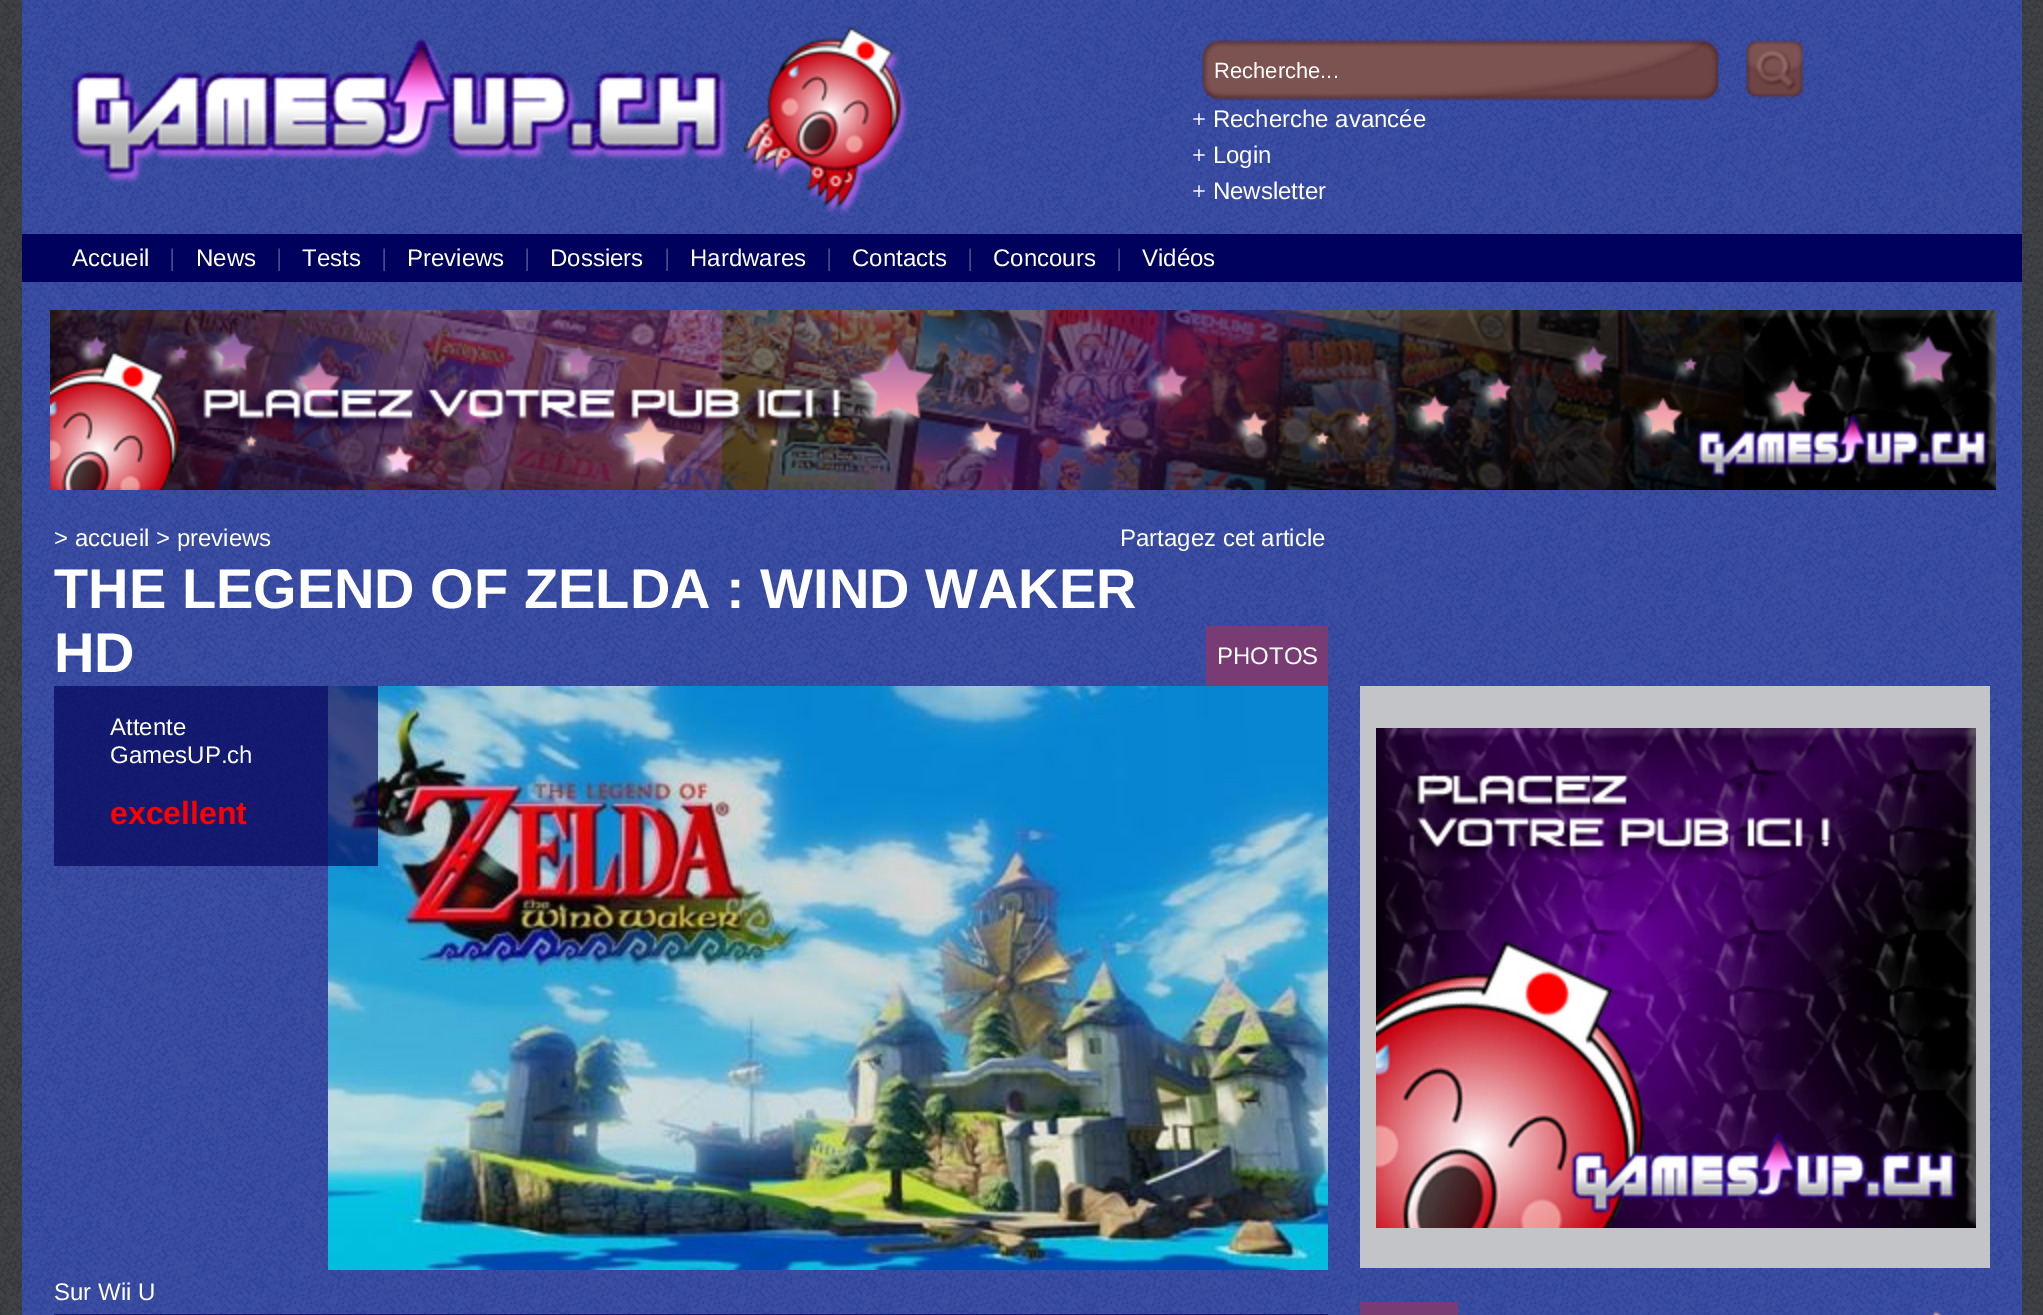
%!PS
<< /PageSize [2043 1315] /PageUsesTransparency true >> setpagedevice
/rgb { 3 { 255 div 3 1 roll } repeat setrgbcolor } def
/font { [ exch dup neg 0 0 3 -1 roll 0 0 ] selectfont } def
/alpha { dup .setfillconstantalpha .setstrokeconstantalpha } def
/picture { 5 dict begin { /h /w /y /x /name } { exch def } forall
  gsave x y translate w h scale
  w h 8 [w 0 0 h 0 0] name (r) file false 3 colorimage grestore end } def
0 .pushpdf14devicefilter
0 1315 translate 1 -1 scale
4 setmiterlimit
255 255 255 rgb
0 0 2043 1315 rectfill
(img/1.rgb) 0 0 2043 1315 picture
(img/2.rgb) 22 0 2000 1315 picture
(img/3.rgb) 71 25 838 190 picture
(img/4.rgb) 1202 39 517 62 picture
(img/5.rgb) 1746 39 58 60 picture
0 0 93 rgb
22 234 2000 48 rectfill
(img/6.rgb) 50 310 1946 180 picture
120 59 116 rgb
1206 626 122 60 rectfill
(img/7.rgb) 328 686 1000 584 picture
0.65 alpha
[
  [54 686 324 180 0 0 84]
  [54 1314 1274 1 0 0 84]
] { aload pop rgb rectfill } forall
1 alpha
[
  [1360 686 630 582 195 196 200]
] { aload pop rgb rectfill } forall
(img/8.rgb) 1376 728 600 500 picture
(img/9.rgb) 1360 1302 583 13 picture
/LiberationSans-Regular 22 font
255 255 255 rgb
1214 78 moveto (Recherche...) show
/LiberationSans-Regular 24 font
[
  [(+ Recherche avancée) 1192 127]
  [(+ Login) 1192 163]
  [(+ Newsletter) 1192 199]
  [(Accueil) 72 266]
] { aload pop moveto show } forall
69 74 140 rgb
169 266 moveto (|) show
255 255 255 rgb
196 266 moveto (News) show
69 74 140 rgb
276 266 moveto (|) show
255 255 255 rgb
302 266 moveto (Tests) show
69 74 140 rgb
381 266 moveto (|) show
255 255 255 rgb
407 266 moveto (Previews) show
69 74 140 rgb
524 266 moveto (|) show
255 255 255 rgb
550 266 moveto (Dossiers) show
69 74 140 rgb
664 266 moveto (|) show
255 255 255 rgb
690 266 moveto (Hardwares) show
69 74 140 rgb
826 266 moveto (|) show
255 255 255 rgb
852 266 moveto (Contacts) show
69 74 140 rgb
967 266 moveto (|) show
255 255 255 rgb
993 266 moveto (Concours) show
69 74 140 rgb
1116 266 moveto (|) show
255 255 255 rgb
[
  [(Vidéos) 1142 266]
  [(> accueil > previews) 54 546]
  [(Partagez cet article) 1120 546]
] { aload pop moveto show } forall
/LiberationSans-Bold 56 font
54 608 moveto (THE LEGEND OF ZELDA : WIND WAKER) show
54 672 moveto (HD) show
/LiberationSans-Regular 24 font
[
  [(PHOTOS) 1217 664]
  [(Attente) 110 735]
  [(GamesUP.ch) 110 763]
] { aload pop moveto show } forall
/LiberationSans-Bold 32 font
255 0 0 rgb
110 824 moveto (excellent) show
/LiberationSans-Regular 24 font
255 255 255 rgb
54 1300 moveto (Sur Wii U) show
.poppdf14devicefilter showpage
